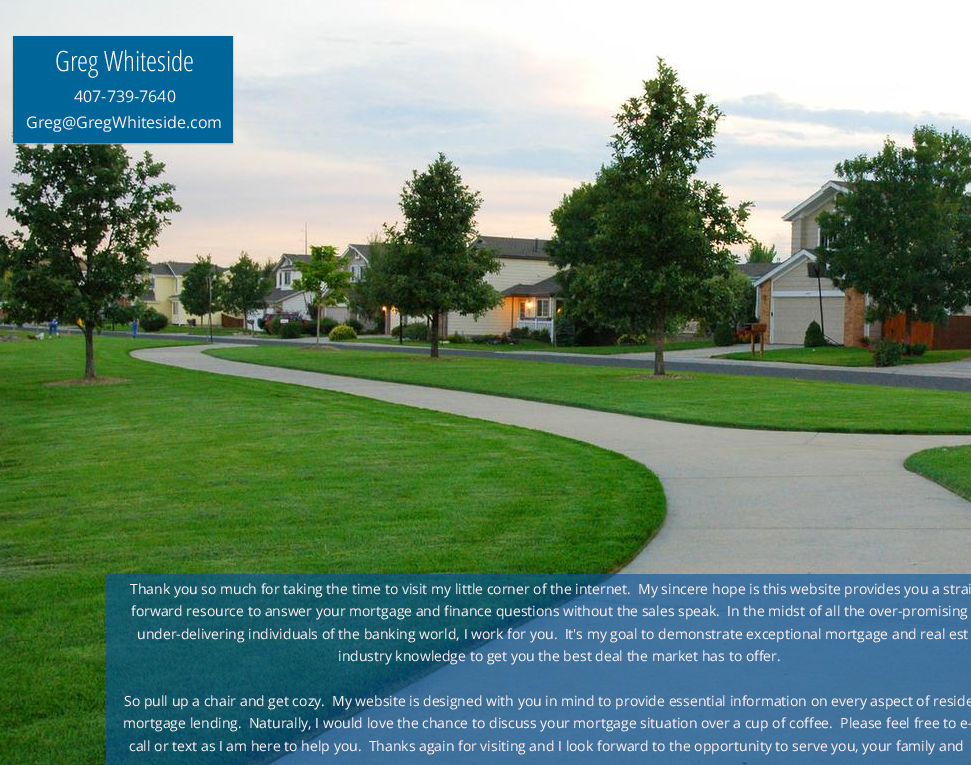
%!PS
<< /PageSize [971 765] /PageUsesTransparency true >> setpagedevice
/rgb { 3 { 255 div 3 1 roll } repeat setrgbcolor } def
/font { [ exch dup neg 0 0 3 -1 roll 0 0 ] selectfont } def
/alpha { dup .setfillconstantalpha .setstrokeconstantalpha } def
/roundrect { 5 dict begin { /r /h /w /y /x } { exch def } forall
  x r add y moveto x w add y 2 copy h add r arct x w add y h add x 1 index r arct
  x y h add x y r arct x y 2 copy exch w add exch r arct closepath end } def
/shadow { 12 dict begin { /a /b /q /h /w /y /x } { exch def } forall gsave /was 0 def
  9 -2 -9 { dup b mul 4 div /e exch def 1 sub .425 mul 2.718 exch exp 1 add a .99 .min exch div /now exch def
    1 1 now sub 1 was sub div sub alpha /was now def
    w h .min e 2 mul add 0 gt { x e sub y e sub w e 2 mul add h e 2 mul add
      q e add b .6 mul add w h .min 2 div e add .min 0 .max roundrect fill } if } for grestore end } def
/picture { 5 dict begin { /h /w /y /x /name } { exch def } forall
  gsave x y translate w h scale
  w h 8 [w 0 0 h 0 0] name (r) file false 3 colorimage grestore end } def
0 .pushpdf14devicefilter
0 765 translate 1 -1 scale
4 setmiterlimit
255 255 255 rgb
0 0 971 765 rectfill
(img/1.rgb) 0 0 971 765 picture
170 170 170 rgb
13 37 220 107 0 1 1 shadow
0 102 153 rgb
13 36 220 107 rectfill
0.6 alpha
0 83 158 rgb
106 574 865 191 rectfill
/OpenSansCondensed-Light 28 font
1 alpha
255 255 255 rgb
55 71 moveto (Greg Whiteside) show
/OpenSans-Regular 16 font
255 240 245 rgb
74 102 moveto (407-739-7640) show
26 128 moveto (Greg@GregWhiteside.com) show
/OpenSans-Regular 14 font
[
  [(Thank you so much for taking the time to visit my little corner of the internet.  My sincere hope is this website provides you a strai) 130 594]
  [(forward resource to answer your mortgage and finance questions without the sales speak.  In the midst of all the over-promising) 131 616]
  [(under-delivering individuals of the banking world, I work for you.  It's my goal to demonstrate exceptional mortgage and real est) 137 639]
  [(industry knowledge to get you the best deal the market has to offer.) 338 661]
  [(So pull up a chair and get cozy.  My website is designed with you in mind to provide essential information on every aspect of reside) 124 706]
  [(mortgage lending.  Naturally, I would love the chance to discuss your mortgage situation over a cup of coffee.  Please feel free to e-) 123 728]
  [(call or text as I am here to help you.  Thanks again for visiting and I look forward to the opportunity to serve you, your family and) 129 751]
] { aload pop moveto show } forall
.poppdf14devicefilter showpage
